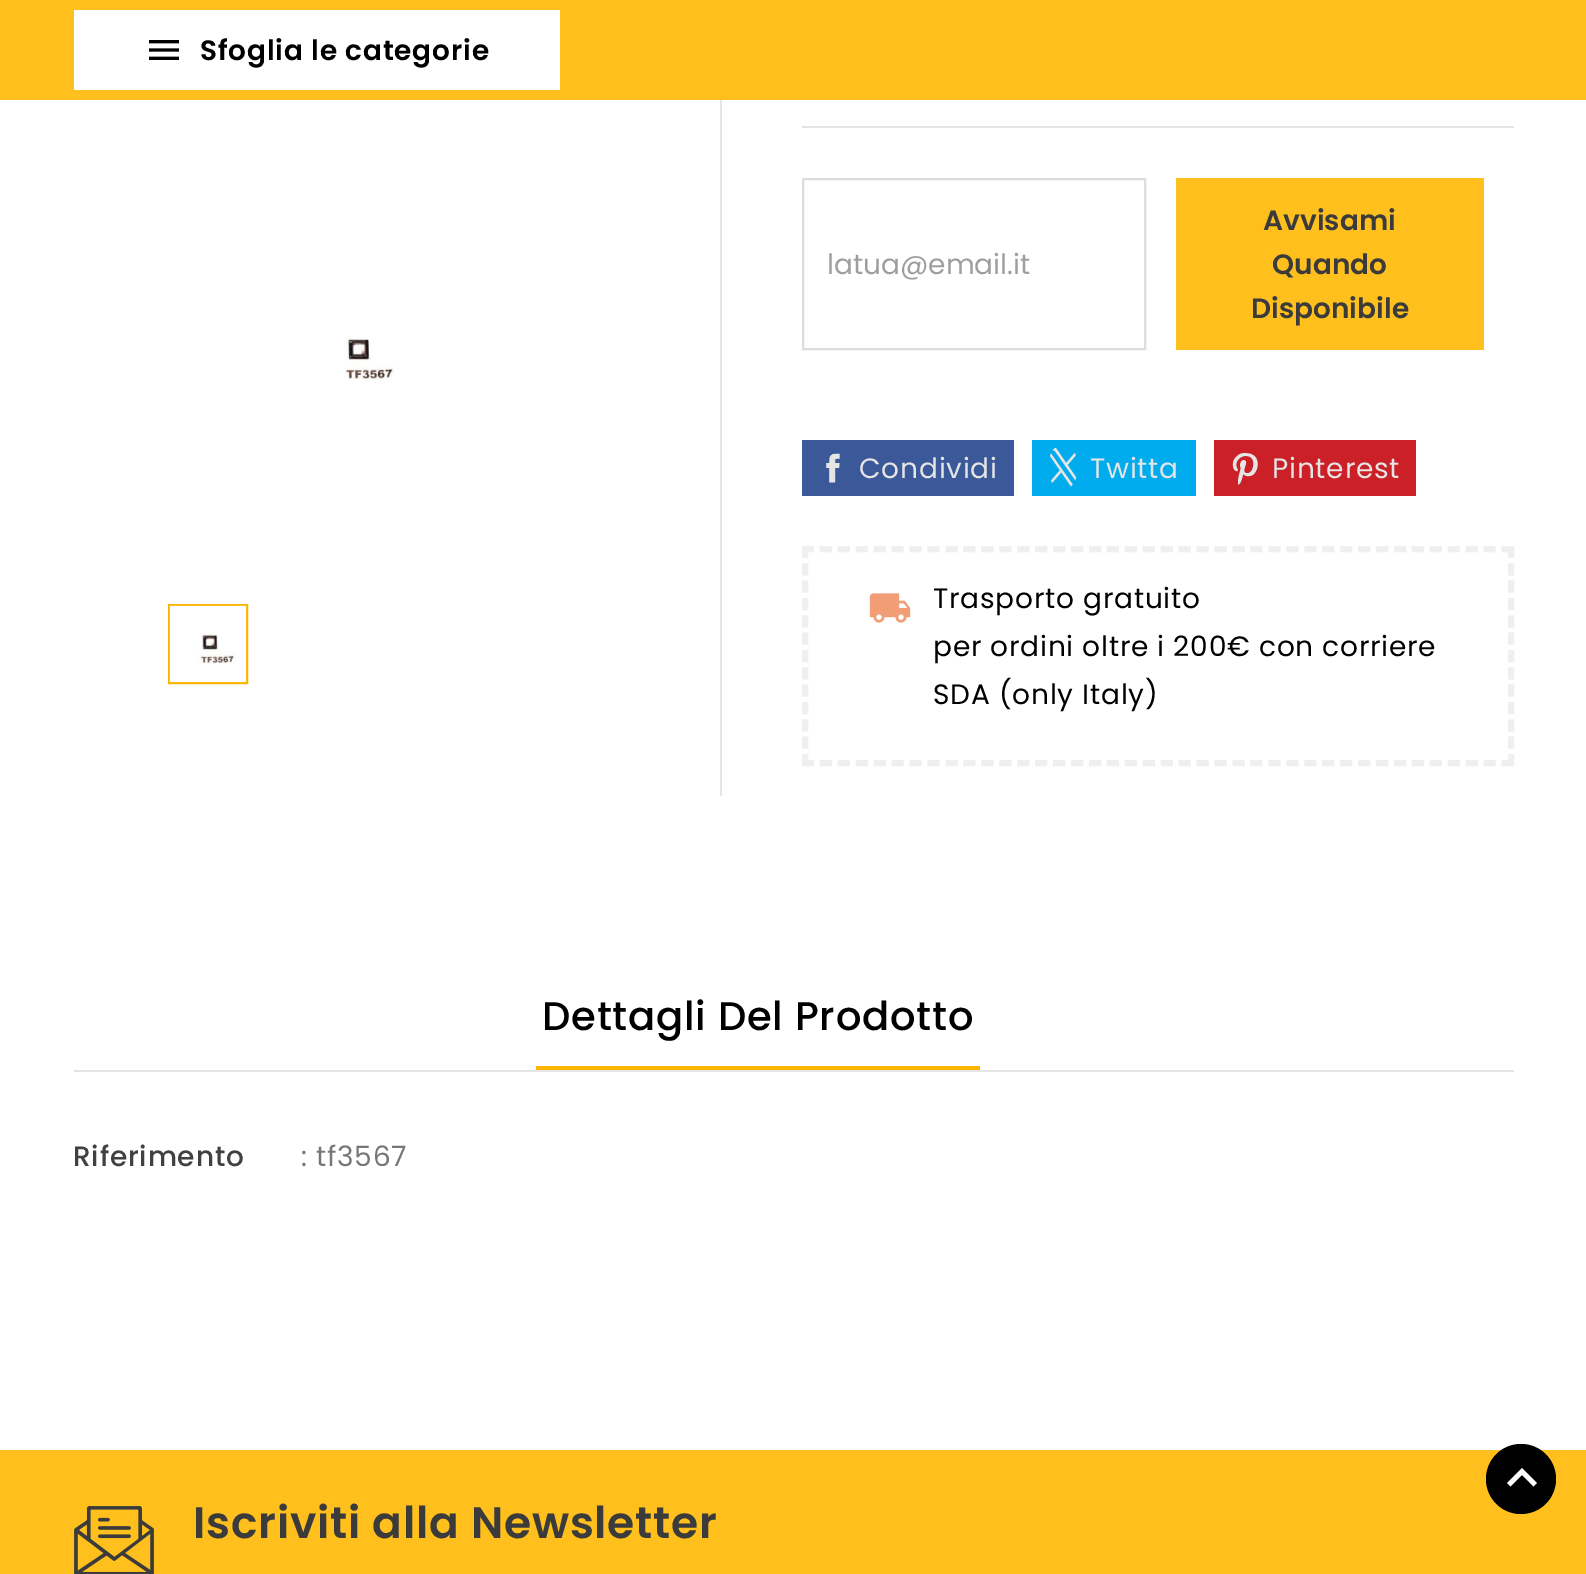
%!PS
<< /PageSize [1586 1574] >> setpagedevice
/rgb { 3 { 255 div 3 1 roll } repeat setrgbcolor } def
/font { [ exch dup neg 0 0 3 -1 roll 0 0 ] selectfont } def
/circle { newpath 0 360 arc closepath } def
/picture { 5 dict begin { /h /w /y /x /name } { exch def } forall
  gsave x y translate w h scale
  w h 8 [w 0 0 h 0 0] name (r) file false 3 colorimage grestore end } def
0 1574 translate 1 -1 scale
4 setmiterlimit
255 255 255 rgb
0 0 1586 1574 rectfill
255 192 29 rgb
0 0 1586 100 rectfill
255 255 255 rgb
74 10 486 80 rectfill
(img/1.rgb) 149 40 30 20 picture
(img/2.rgb) 344 338 214 216 picture
250 181 5 rgb
2 setlinewidth
169 605 78 78 rectstroke
(img/3.rgb) 169 605 78 78 picture
229 229 229 rgb
720 100 2 696 rectfill
802 126 712 2 rectfill
221 221 221 rgb
803 179 342 170 rectstroke
255 192 29 rgb
1176 178 308 172 rectfill
59 89 152 rgb
802 440 212 56 rectfill
(img/4.rgb) 826 453 14 30 picture
0 172 237 rgb
1032 440 164 56 rectfill
(img/5.rgb) 1050 448 27 39 picture
203 32 39 rgb
1214 440 202 56 rectfill
(img/6.rgb) 1232 453 26 32 picture
239 239 239 rgb
6 setlinewidth
[12 5.94] 0 setdash
802 549 moveto 1514 549 lineto stroke
[12 5.34] 0 setdash
1511 546 moveto 1511 766 lineto stroke
[12 5.94] 0 setdash
802 763 moveto 1514 763 lineto stroke
[12 5.34] 0 setdash
805 546 moveto 805 766 lineto stroke
(img/7.rgb) 869 593 42 30 picture
[
  [536 1066 444 4 250 181 5]
  [74 1070 1440 2 229 229 229]
  [0 1450 1586 124 255 192 29]
] { aload pop rgb rectfill } forall
0 0 0 rgb
1521 1479 35 circle fill
255 255 255 rgb
1522 1468 moveto 1537 1483 lineto 1533.5 1486.5 lineto 1522 1475 lineto 1510.5 1486.5 lineto 1507 1483 lineto closepath fill
(img/8.rgb) 74 1506 80 68 picture
/Poppins-SemiBold 28 font
0 0 0 rgb
200 60 moveto 0.8 0 (Sfoglia le categorie) ashow
/Poppins-Regular 28 font
158 158 158 rgb
827 274 moveto (latua@email.it) show
/Poppins-SemiBold 28 font
59 59 59 rgb
[
  [(Avvisami) 1263 230]
  [(Quando) 1272 274]
  [(Disponibile) 1251 318]
] { aload pop moveto show } forall
/Poppins-Regular 28 font
229 229 229 rgb
859 478 moveto 0.8 0 (Condividi) ashow
1090 478 moveto 0.8 0 (Twitta) ashow
1272 478 moveto 0.8 0 (Pinterest) ashow
0 0 0 rgb
933 608 moveto 0.8 0 (Trasporto gratuito) ashow
933 656 moveto 0.8 0 (per ordini oltre i 200€ con corriere) ashow
933 704 moveto 0.8 0 (SDA \(only Italy\)) ashow
/Poppins-Medium 40 font
542 1030 moveto 0.8 0 (Dettagli Del Prodotto) ashow
/Poppins-Medium 28 font
65 65 65 rgb
73 1166 moveto 0.8 0 (Riferimento) ashow
/Poppins-Regular 28 font
119 119 119 rgb
301 1166 moveto 0.8 0 (: tf3567) ashow
/Poppins-SemiBold 44 font
59 59 59 rgb
193 1538 moveto 0.8 0 (Iscriviti alla Newsletter) ashow
showpage
